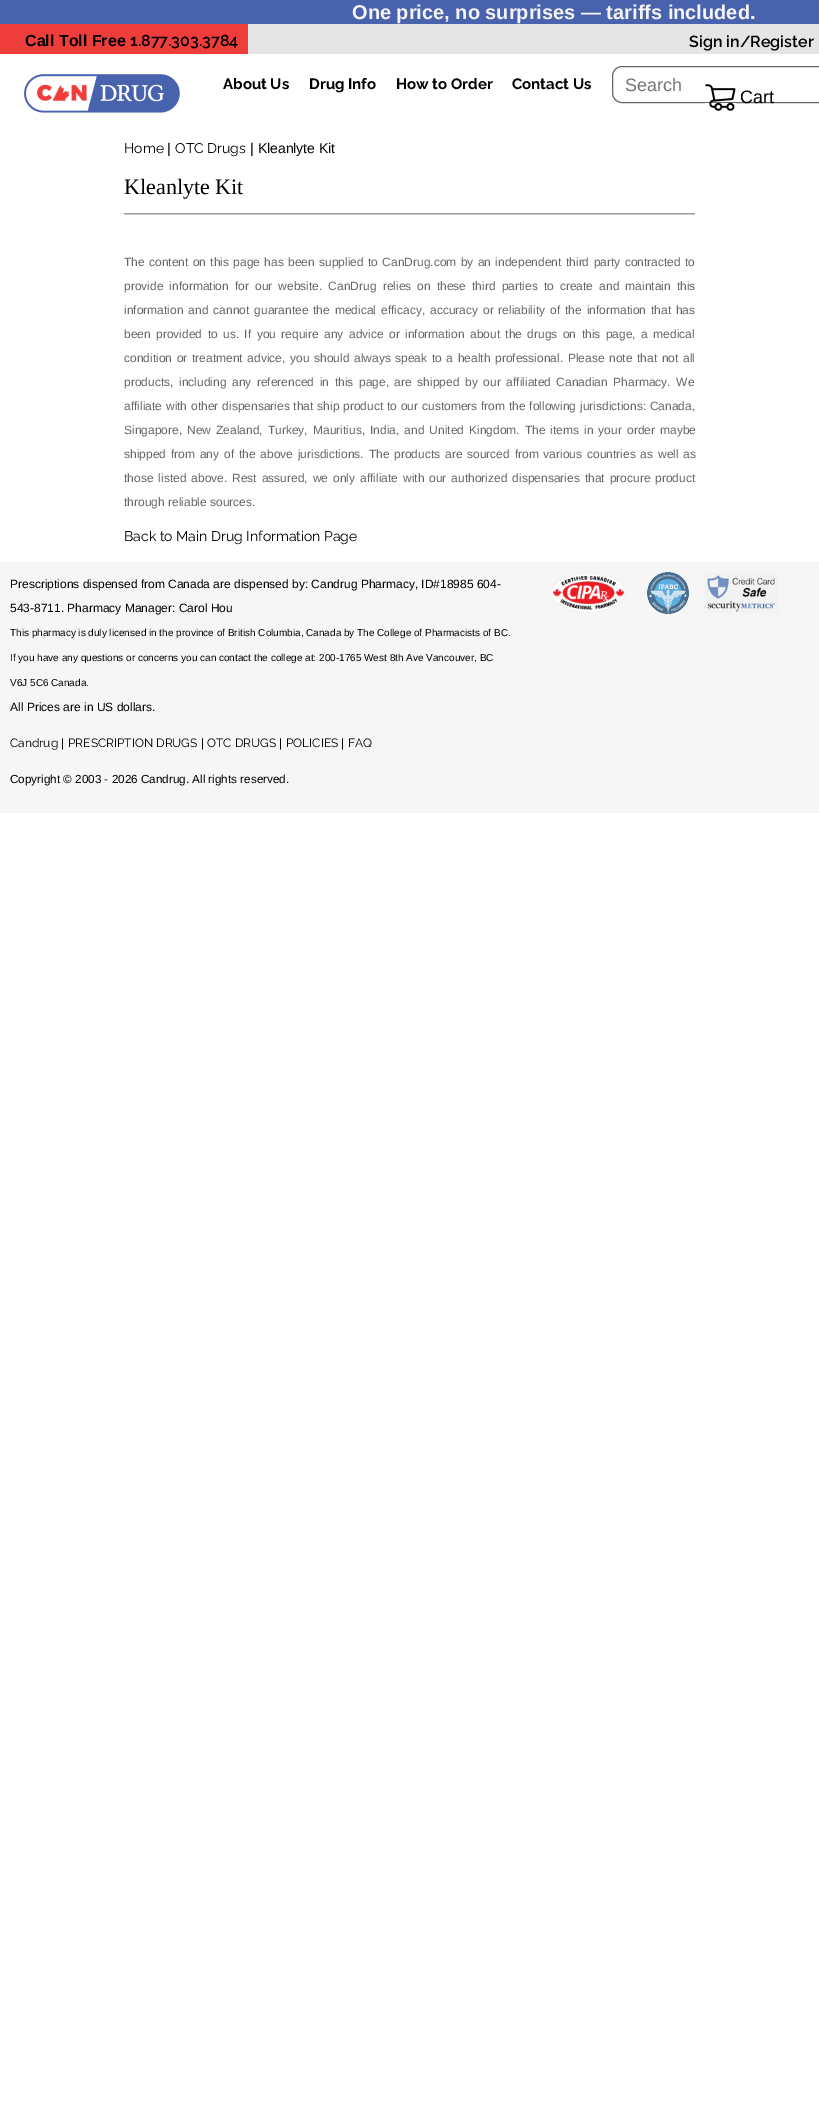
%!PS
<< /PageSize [819 2117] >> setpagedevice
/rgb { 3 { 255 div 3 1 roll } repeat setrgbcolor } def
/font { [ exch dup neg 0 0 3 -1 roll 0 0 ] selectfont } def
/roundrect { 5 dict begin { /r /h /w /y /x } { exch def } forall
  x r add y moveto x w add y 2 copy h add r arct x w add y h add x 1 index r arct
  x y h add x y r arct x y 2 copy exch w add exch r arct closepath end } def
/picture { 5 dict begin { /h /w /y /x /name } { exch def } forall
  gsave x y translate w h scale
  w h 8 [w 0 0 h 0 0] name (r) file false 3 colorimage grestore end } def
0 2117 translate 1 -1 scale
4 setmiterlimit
255 255 255 rgb
0 0 819 2117 rectfill
[
  [0 0 819 24 72 98 174]
  [248 24 571 30 229 229 229]
  [0 24 248 30 239 61 59]
] { aload pop rgb rectfill } forall
(img/1.rgb) 23 74 157 39 picture
102 102 102 rgb
612.5 66.5 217 36 9.5 roundrect stroke
(img/2.rgb) 705 84 31 27 picture
[
  [124 213 571 1 153 153 153]
  [124 214 571 1 204 204 204]
  [0 562 819 251 246 246 246]
] { aload pop rgb rectfill } forall
(img/3.rgb) 551 573 75 40 picture
(img/4.rgb) 647 572 42 42 picture
(img/5.rgb) 704 573 75 40 picture
/LiberationSans-Bold 20 font
352 19 moveto (One price, no surprises — tariffs included.) show
/LiberationSans-Bold 16 font
0 0 0 rgb
25 46 moveto (Call Toll Free) show
/Raleway-SemiBold 16 font
130 46 moveto (1.877.303.3784) show
689 47 moveto (Sign in/Register) show
/Raleway-Bold 15 font
[
  [(About Us) 223 89]
  [(Drug Info) 309 89]
  [(How to Order) 396 89]
  [(Contact Us) 512 89]
] { aload pop moveto show } forall
/LiberationSans-Regular 18 font
117 117 117 rgb
625 91 moveto (Search) show
0 0 0 rgb
740 103 moveto (Cart) show
/Raleway-Regular 14 font
124 153 moveto (Home) show
/LiberationSans-Regular 14 font
167 153 moveto (|) show
/Raleway-Regular 14 font
175 153 moveto (OTC Drugs) show
/LiberationSans-Regular 14 font
250 153 moveto (| Kleanlyte Kit) show
/LiberationSerif-Regular 22 font
124 194 moveto (Kleanlyte Kit) show
/LiberationSans-Regular 12 font
102 102 102 rgb
124 266 moveto 1 0 32 (The content on this page has been supplied to CanDrug.com by an independent third party contracted to) widthshow
124 290 moveto 2.75 0 32 (provide information for our website. CanDrug relies on these third parties to create and maintain this) widthshow
124 314 moveto 1.6 0 32 (information and cannot guarantee the medical efficacy, accuracy or reliability of the information that has) widthshow
124 338 moveto 2.1 0 32 (been provided to us. If you require any advice or information about the drugs on this page, a medical) widthshow
124 362 moveto 1.3 0 32 (condition or treatment advice, you should always speak to a health professional. Please note that not all) widthshow
124 386 moveto 2.25 0 32 (products, including any referenced in this page, are shipped by our affiliated Canadian Pharmacy. We) widthshow
124 410 moveto 0.5 0 32 (affiliate with other dispensaries that ship product to our customers from the following jurisdictions: Canada,) widthshow
124 434 moveto 1.7 0 32 (Singapore, New Zealand, Turkey, Mauritius, India, and United Kingdom. The items in your order maybe) widthshow
124 458 moveto 1.5 0 32 (shipped from any of the above jurisdictions. The products are sourced from various countries as well as) widthshow
124 482 moveto 1.6 0 32 (those listed above. Rest assured, we only affiliate with our authorized dispensaries that procure product) widthshow
124 506 moveto (through reliable sources.) show
/Raleway-Regular 14 font
0 0 0 rgb
124 541 moveto (Back to Main Drug Information Page) show
/LiberationSans-Regular 12 font
10 588 moveto (Prescriptions dispensed from Canada are dispensed by: Candrug Pharmacy, ID#18985 604-) show
10 612 moveto (543-8711. Pharmacy Manager: Carol Hou) show
/LiberationSans-Regular 10 font
[
  [(This pharmacy is duly licensed in the province of British Columbia, Canada by The College of Pharmacists of BC.) 10 636]
  [(If you have any questions or concerns you can contact the college at: 200-1765 West 8th Ave Vancouver, BC) 10 661]
  [(V6J 5C6 Canada.) 10 686]
] { aload pop moveto show } forall
/LiberationSans-Regular 12 font
10 711 moveto (All Prices are in US dollars.) show
/Raleway-Regular 12 font
10 747 moveto (Candrug) show
/LiberationSans-Regular 12 font
61 747 moveto (|) show
/Raleway-Regular 12 font
68 747 moveto (PRESCRIPTION DRUGS) show
/LiberationSans-Regular 12 font
201 747 moveto (|) show
/Raleway-Regular 12 font
207 747 moveto (OTC DRUGS) show
/LiberationSans-Regular 12 font
279 747 moveto (|) show
/Raleway-Regular 12 font
286 747 moveto (POLICIES) show
/LiberationSans-Regular 12 font
341 747 moveto (|) show
/Raleway-Regular 12 font
348 747 moveto (FAQ) show
/LiberationSans-Regular 11.7 font
10 783 moveto (Copyright © 2003 - 2026 Candrug. All rights reserved.) show
showpage
